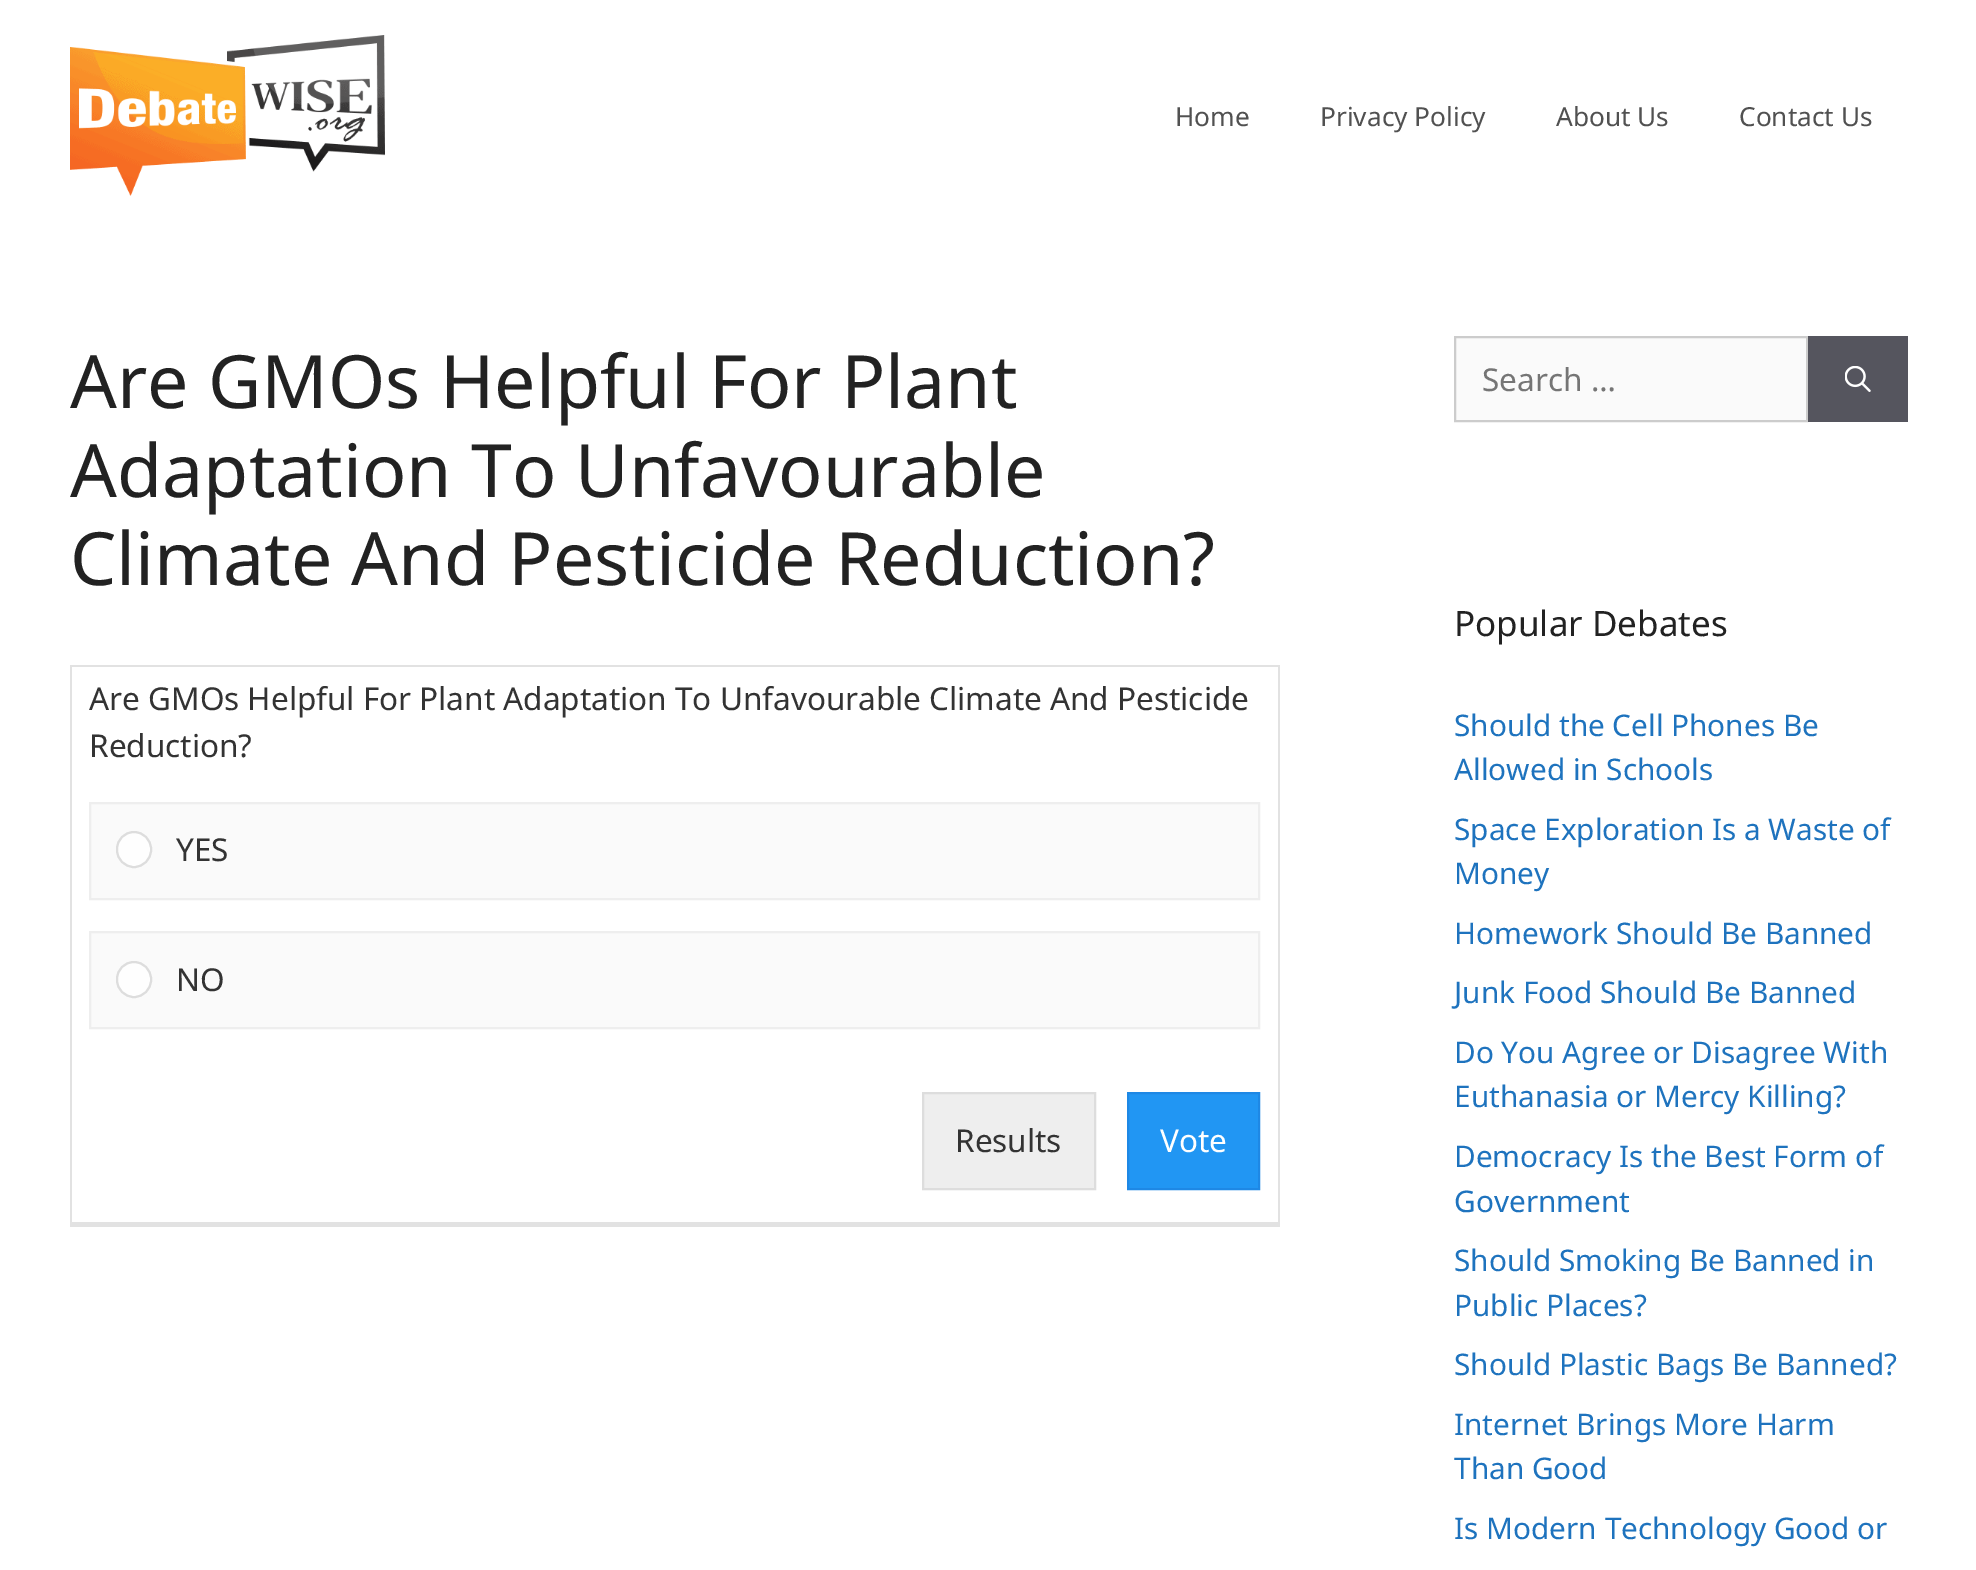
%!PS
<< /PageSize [1976 1570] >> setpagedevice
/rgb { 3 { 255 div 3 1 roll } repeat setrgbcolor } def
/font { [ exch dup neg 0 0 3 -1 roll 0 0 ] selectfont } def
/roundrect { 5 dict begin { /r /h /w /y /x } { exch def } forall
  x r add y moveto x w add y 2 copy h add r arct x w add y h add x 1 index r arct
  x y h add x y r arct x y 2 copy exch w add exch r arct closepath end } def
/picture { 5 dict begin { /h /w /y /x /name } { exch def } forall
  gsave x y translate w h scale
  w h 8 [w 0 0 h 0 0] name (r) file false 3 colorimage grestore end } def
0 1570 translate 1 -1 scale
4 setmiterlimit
255 255 255 rgb
0 0 1976 1570 rectfill
(img/1.rgb) 70 35 315 161 picture
[
  [70 665 1209 2 226 226 226]
  [1278 665 2 562 226 226 226]
  [70 1222 1209 5 226 226 226]
  [70 665 2 562 226 226 226]
] { aload pop rgb rectfill } forall
250 250 250 rgb
90 803 moveto 1259 803 lineto 1259 899 lineto 90 899 lineto closepath gsave fill grestore
238 238 238 rgb
2 setlinewidth
stroke
254 254 254 rgb
117 832 34 35 17 roundrect gsave fill grestore
221 221 221 rgb
stroke
250 250 250 rgb
90 932 moveto 1259 932 lineto 1259 1028 lineto 90 1028 lineto closepath gsave fill grestore
238 238 238 rgb
stroke
254 254 254 rgb
117 962 34 35 17 roundrect gsave fill grestore
221 221 221 rgb
stroke
238 238 238 rgb
923 1093 moveto 1095 1093 lineto 1095 1189 lineto 923 1189 lineto closepath gsave fill grestore
221 221 221 rgb
stroke
33 150 243 rgb
1128 1093 moveto 1259 1093 lineto 1259 1189 lineto 1128 1189 lineto closepath gsave fill grestore
30 136 229 rgb
stroke
250 250 250 rgb
1455 337 moveto 1807 337 lineto 1807 421 lineto 1455 421 lineto closepath gsave fill grestore
204 204 204 rgb
stroke
85 85 94 rgb
1808 336 100 86 rectfill
(img/2.rgb) 1845 366 26 26 picture
/NotoSans-Regular 26.25 font
81 81 81 rgb
[
  [(Home) 1175 126]
  [(Privacy Policy) 1320 126]
  [(About Us) 1556 126]
  [(Contact Us) 1739 126]
] { aload pop moveto show } forall
/NotoSans-Regular 73.5 font
34 34 34 rgb
[
  [(Are GMOs Helpful For Plant) 70 408]
  [(Adaptation To Unfavourable) 70 497]
  [(Climate And Pesticide Reduction?) 70 585]
] { aload pop moveto show } forall
/NotoSans-Regular 31.5 font
51 51 51 rgb
[
  [(Are GMOs Helpful For Plant Adaptation To Unfavourable Climate And Pesticide) 89 710]
  [(Reduction?) 89 757]
  [(YES) 176 861]
  [(NO) 176 991]
  [(Results) 955 1152]
] { aload pop moveto show } forall
255 255 255 rgb
1160 1152 moveto (Vote) show
117 117 117 rgb
1482 391 moveto (Search …) show
/NotoSans-Regular 35 font
34 34 34 rgb
1454 636 moveto (Popular Debates) show
/NotoSans-Regular 29.75 font
30 115 190 rgb
[
  [(Should the Cell Phones Be) 1454 736]
  [(Allowed in Schools) 1454 780]
  [(Space Exploration Is a Waste of) 1454 840]
  [(Money) 1454 884]
  [(Homework Should Be Banned) 1454 944]
  [(Junk Food Should Be Banned) 1454 1003]
  [(Do You Agree or Disagree With) 1454 1063]
  [(Euthanasia or Mercy Killing?) 1454 1107]
  [(Democracy Is the Best Form of) 1454 1167]
  [(Government) 1454 1212]
  [(Should Smoking Be Banned in) 1454 1271]
  [(Public Places?) 1454 1316]
  [(Should Plastic Bags Be Banned?) 1454 1375]
  [(Internet Brings More Harm) 1454 1435]
  [(Than Good) 1454 1479]
  [(Is Modern Technology Good or) 1454 1539]
] { aload pop moveto show } forall
showpage
